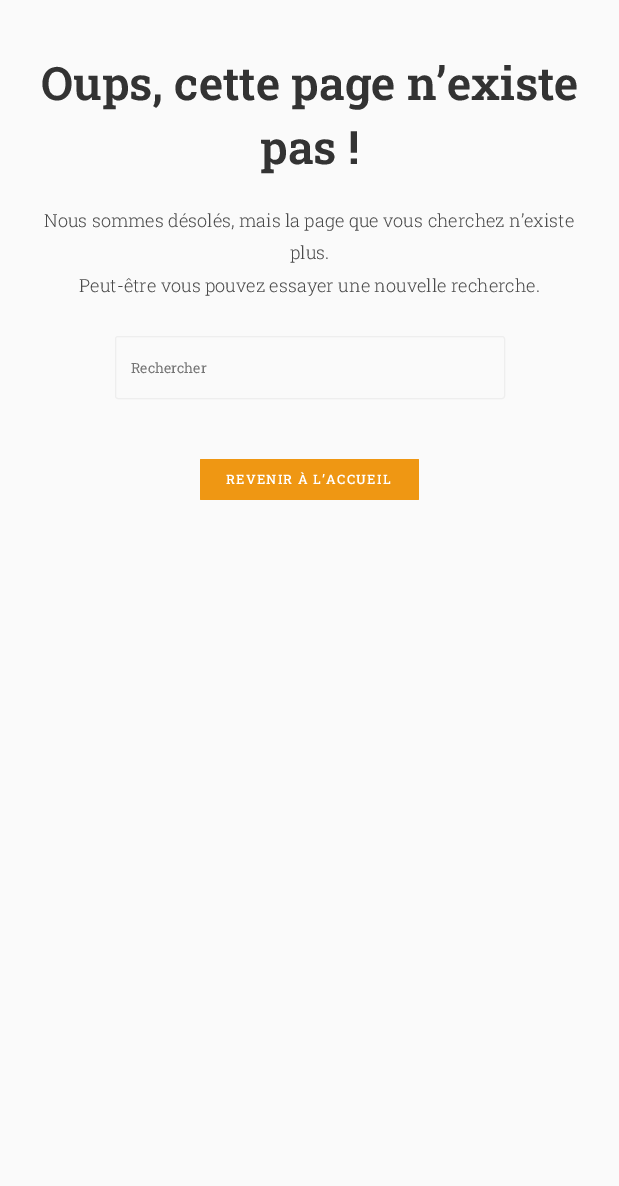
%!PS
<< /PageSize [619 1186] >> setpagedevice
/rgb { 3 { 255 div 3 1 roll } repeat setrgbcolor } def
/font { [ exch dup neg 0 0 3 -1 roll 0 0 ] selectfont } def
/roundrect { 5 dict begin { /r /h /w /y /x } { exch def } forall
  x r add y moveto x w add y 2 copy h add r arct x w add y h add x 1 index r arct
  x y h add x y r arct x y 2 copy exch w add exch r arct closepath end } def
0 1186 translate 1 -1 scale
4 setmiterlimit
250 250 250 rgb
0 0 619 1186 rectfill
238 238 238 rgb
115.5 336.5 389 62 2.5 roundrect stroke
239 151 19 rgb
200 459 219 41 1 roundrect fill
/RobotoSlab-SemiBold 46 font
51 51 51 rgb
41 100 moveto (Oups, cette page n’existe) show
260 164 moveto (pas !) show
/RobotoSlab-Light 18 font
74 74 74 rgb
[
  [(Nous sommes désolés, mais la page que vous cherchez n’existe) 44 227]
  [(plus.) 290 259]
  [(Peut-être vous pouvez essayer une nouvelle recherche.) 79 292]
] { aload pop moveto show } forall
/RobotoSlab-Regular 14 font
117 117 117 rgb
131 373 moveto (Rechercher) show
/RobotoSlab-SemiBold 13 font
255 255 255 rgb
226 484 moveto 1.25 0 (REVENIR À L’ACCUEIL) ashow
showpage
